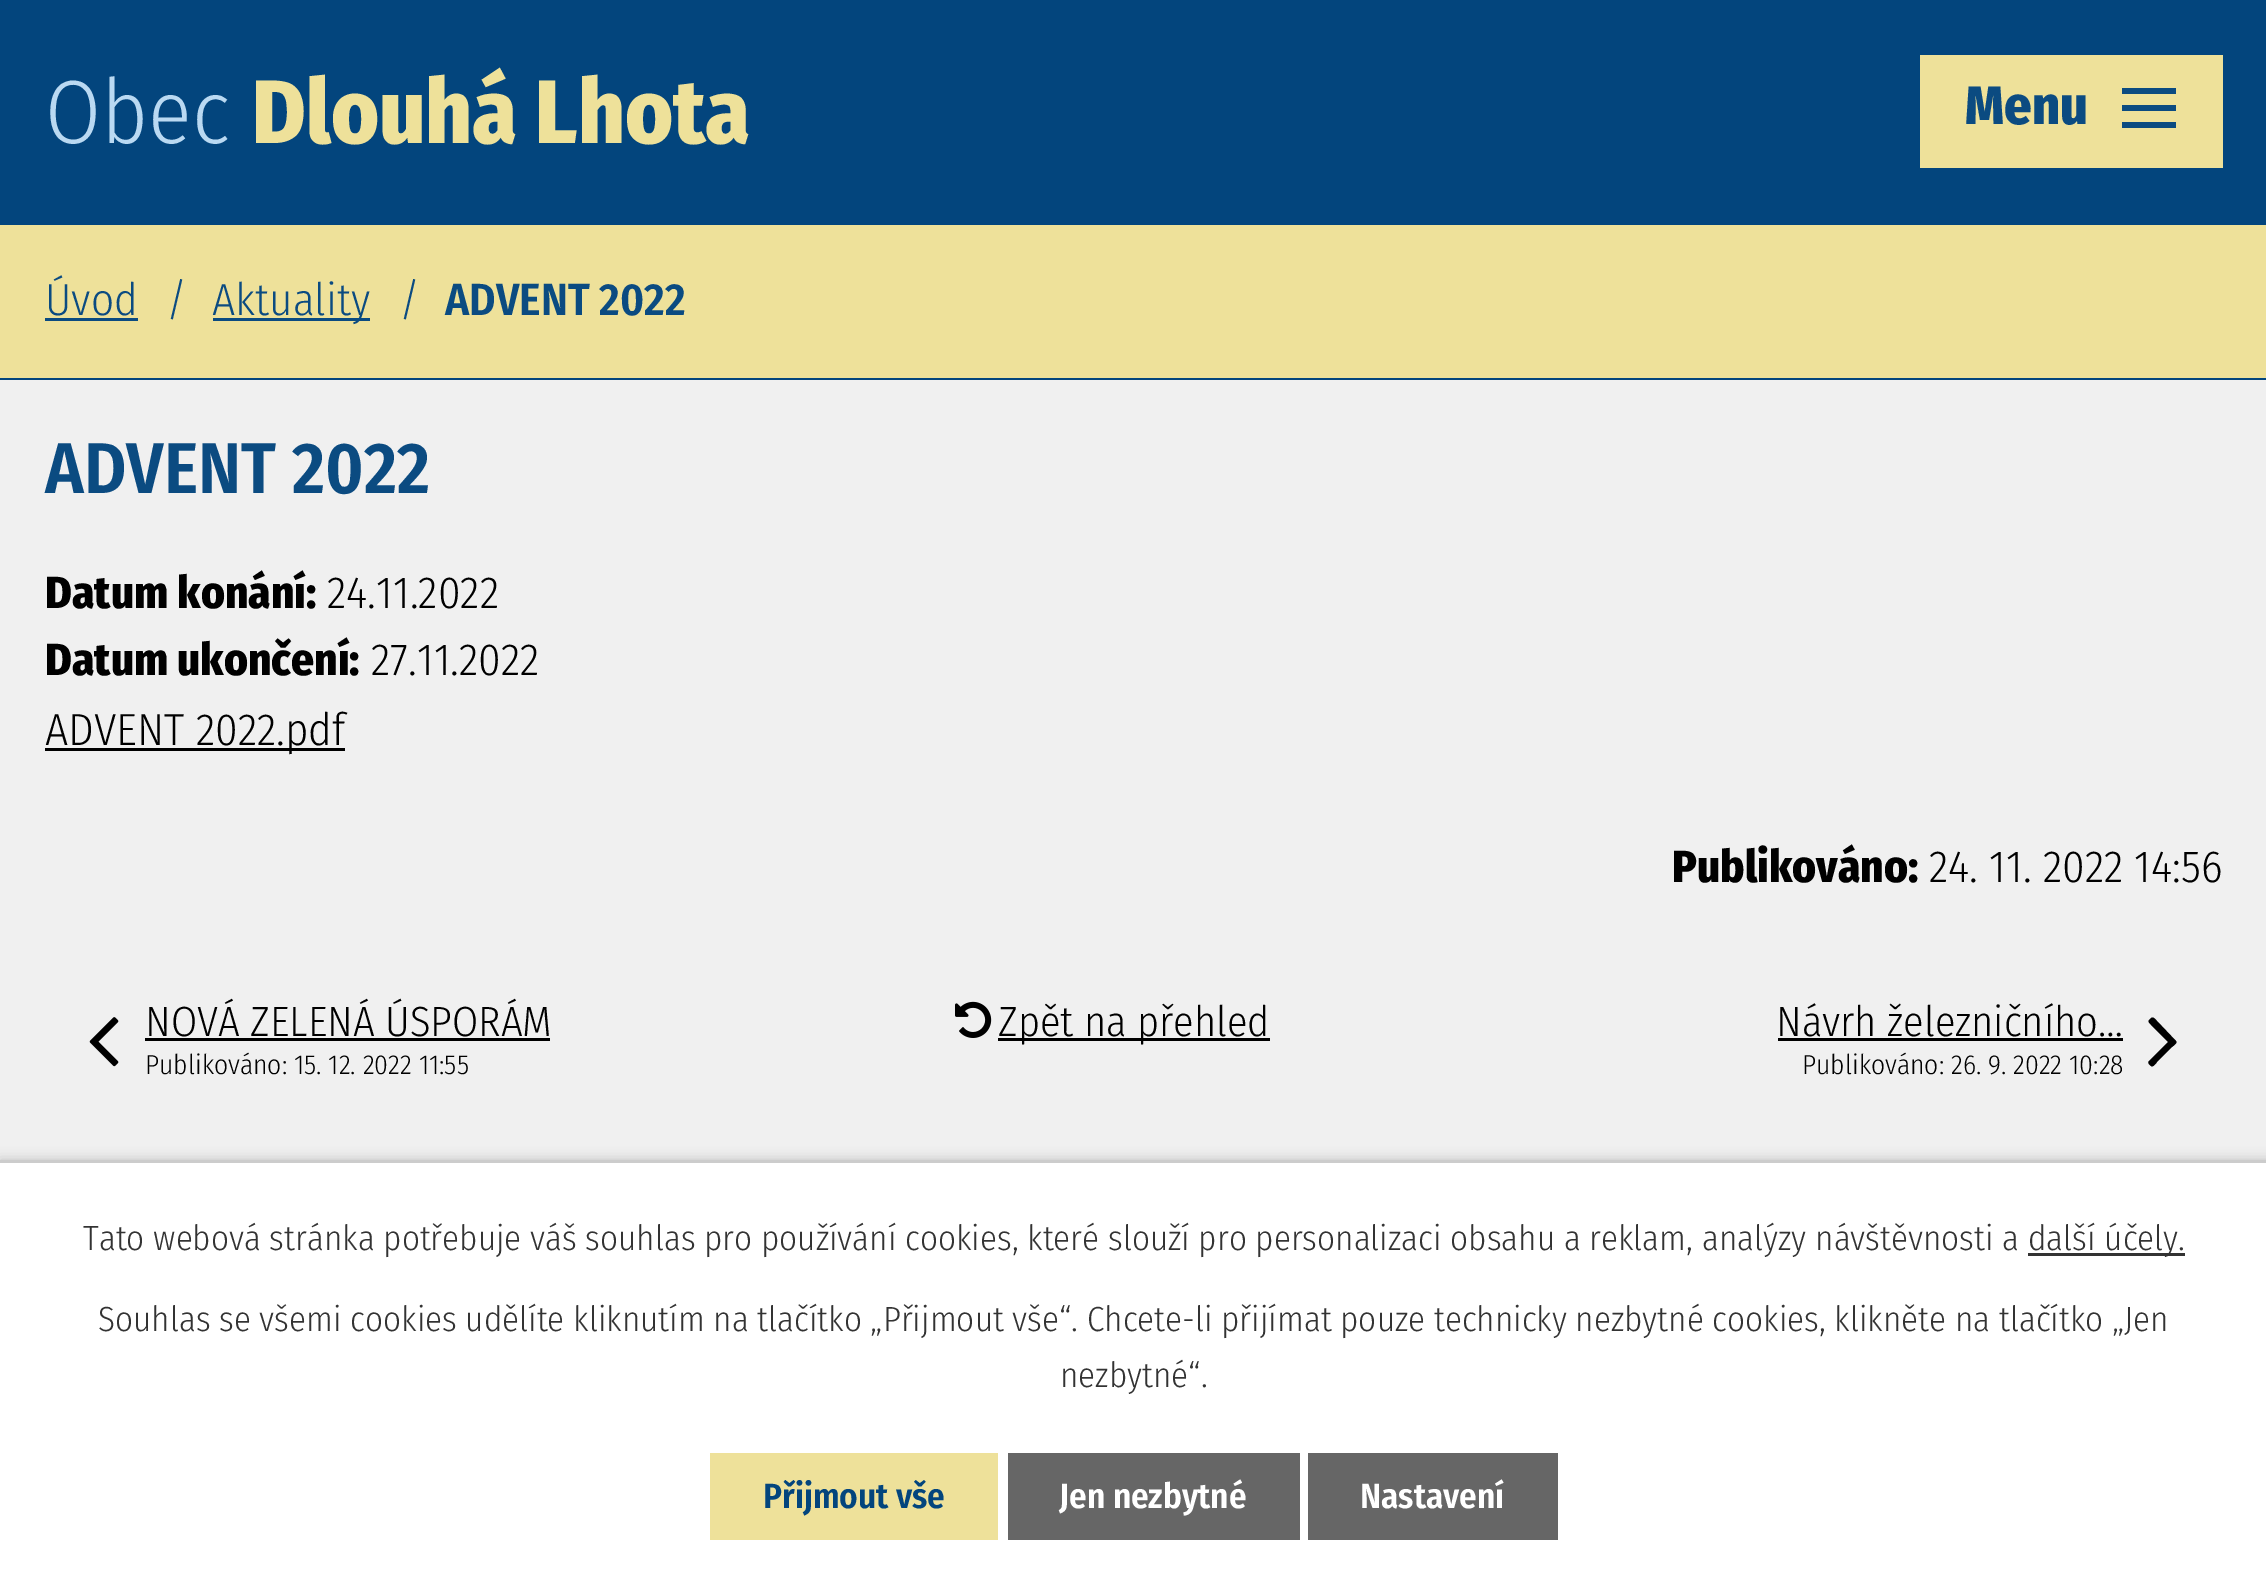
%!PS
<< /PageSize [2266 1586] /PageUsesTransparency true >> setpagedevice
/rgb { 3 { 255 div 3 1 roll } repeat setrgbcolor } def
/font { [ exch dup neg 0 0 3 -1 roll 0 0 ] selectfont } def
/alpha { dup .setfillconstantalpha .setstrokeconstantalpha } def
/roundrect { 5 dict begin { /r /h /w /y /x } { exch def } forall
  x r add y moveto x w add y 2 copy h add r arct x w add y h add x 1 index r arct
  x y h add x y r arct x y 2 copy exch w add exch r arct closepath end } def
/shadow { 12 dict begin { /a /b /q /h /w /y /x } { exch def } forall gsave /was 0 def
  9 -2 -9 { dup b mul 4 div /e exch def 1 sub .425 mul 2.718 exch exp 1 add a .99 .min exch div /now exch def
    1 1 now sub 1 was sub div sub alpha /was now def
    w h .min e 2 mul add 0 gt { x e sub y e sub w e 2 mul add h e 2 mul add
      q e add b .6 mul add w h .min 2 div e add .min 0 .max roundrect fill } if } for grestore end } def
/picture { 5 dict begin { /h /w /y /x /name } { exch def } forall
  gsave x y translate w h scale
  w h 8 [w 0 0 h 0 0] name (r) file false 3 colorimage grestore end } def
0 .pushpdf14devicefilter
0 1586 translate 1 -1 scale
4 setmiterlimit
3 69 125 rgb
0 0 2266 1586 rectfill
[
  [0 225 2266 153 238 225 154]
  [45 318 93 3 11 75 129]
  [213 318 157 3 11 75 129]
  [1920 55 303 113 238 225 154]
] { aload pop rgb rectfill } forall
11 75 129 rgb
2122 128 moveto 2122 122 lineto 2176 122 lineto 2176 128 lineto closepath 2122 88 moveto 2176 88 lineto 2176 94 lineto 2122 94 lineto closepath 2122 111 moveto 2122 105 lineto 2176 105 lineto 2176 111 lineto closepath fill
240 240 240 rgb
0 380 2266 780 rectfill
0 0 0 rgb
45 748 300 3 rectfill
(img/1.rgb) 89 1017 30 50 picture
145 1038 405 3 rectfill
(img/2.rgb) 955 1001 37 37 picture
998 1038 272 3 rectfill
1778 1038 345 3 rectfill
2176 1041 moveto 2178 1043 2173 1046 2172 1047 curveto 2157 1062 lineto 2157 1062 2153 1068 2151 1066 curveto 2150 1065 2147 1063 2149 1061 curveto 2168 1042 lineto 2152 1026 lineto 2149 1022 2147 1022 2150 1019 curveto 2153 1016 2154 1018 2157 1021 curveto closepath fill
0 1160 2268 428 0 6 0.2 shadow
[
  [0 1163 2266 423 255 255 255]
  [0 1160 2266 3 204 204 204]
  [2028 1253 157 3 51 51 51]
  [710 1453 288 87 238 225 154]
  [1008 1453 292 87 102 102 102]
  [1308 1453 250 87 102 102 102]
] { aload pop rgb rectfill } forall
/FiraSansCondensed-Light 90 font
186 217 242 rgb
45 143 moveto (Obec) show
/FiraSansCondensed-ExtraBold 90 font
238 225 154 rgb
252 143 moveto (Dlouhá Lhota) show
/FiraSansCondensed-Light 45 font
11 75 129 rgb
[
  [(Úvod) 45 315]
  [(/) 166 315]
  [(Aktuality) 212 315]
  [(/) 399 315]
] { aload pop moveto show } forall
/FiraSansCondensed-SemiBold 45 font
445 315 moveto (ADVENT 2022) show
/FiraSansCondensed-ExtraBold 54 font
1965 124 moveto (Menu) show
/FiraSansCondensed-SemiBold 72 font
45 493 moveto (ADVENT 2022) show
/FiraSansCondensed-ExtraBold 45 font
0 0 0 rgb
45 608 moveto (Datum konání:) show
/FiraSansCondensed-Light 45 font
327 608 moveto (24.11.2022) show
/FiraSansCondensed-ExtraBold 45 font
45 675 moveto (Datum ukončení:) show
/FiraSansCondensed-Light 45 font
371 675 moveto (27.11.2022) show
45 745 moveto (ADVENT 2022.pdf) show
/FiraSansCondensed-ExtraBold 45 font
1672 882 moveto (Publikováno:) show
/FiraSansCondensed-Light 45 font
1929 882 moveto (24. 11. 2022 14:56) show
/FiraSansCondensed-Light 42.25 font
145 1036 moveto (NOVÁ ZELENÁ ÚSPORÁM) show
/FiraSansCondensed-Light 27.5 font
145 1074 moveto (Publikováno: 15. 12. 2022 11:55) show
/FiraSansCondensed-Light 42.25 font
998 1036 moveto (Zpět na přehled) show
1776 1036 moveto (Návrh železničního…) show
/FiraSansCondensed-Light 27.5 font
1802 1074 moveto (Publikováno: 26. 9. 2022 10:28) show
/FiraSansCondensed-Light 35 font
51 51 51 rgb
[
  [(Tato webová stránka potřebuje váš souhlas pro používání cookies, které slouží pro personalizaci obsahu a reklam, analýzy návštěvnosti a) 83 1250]
  [(další účely.) 2028 1250]
  [(Souhlas se všemi cookies udělíte kliknutím na tlačítko „Přijmout vše“. Chcete-li přijímat pouze technicky nezbytné cookies, klikněte na tlačítko „Jen) 98 1331]
  [(nezbytné“.) 1060 1387]
] { aload pop moveto show } forall
/FiraSansCondensed-SemiBold 35 font
3 69 125 rgb
763 1508 moveto (Přijmout vše) show
255 255 255 rgb
1059 1508 moveto (Jen nezbytné) show
1360 1508 moveto (Nastavení) show
.poppdf14devicefilter showpage
